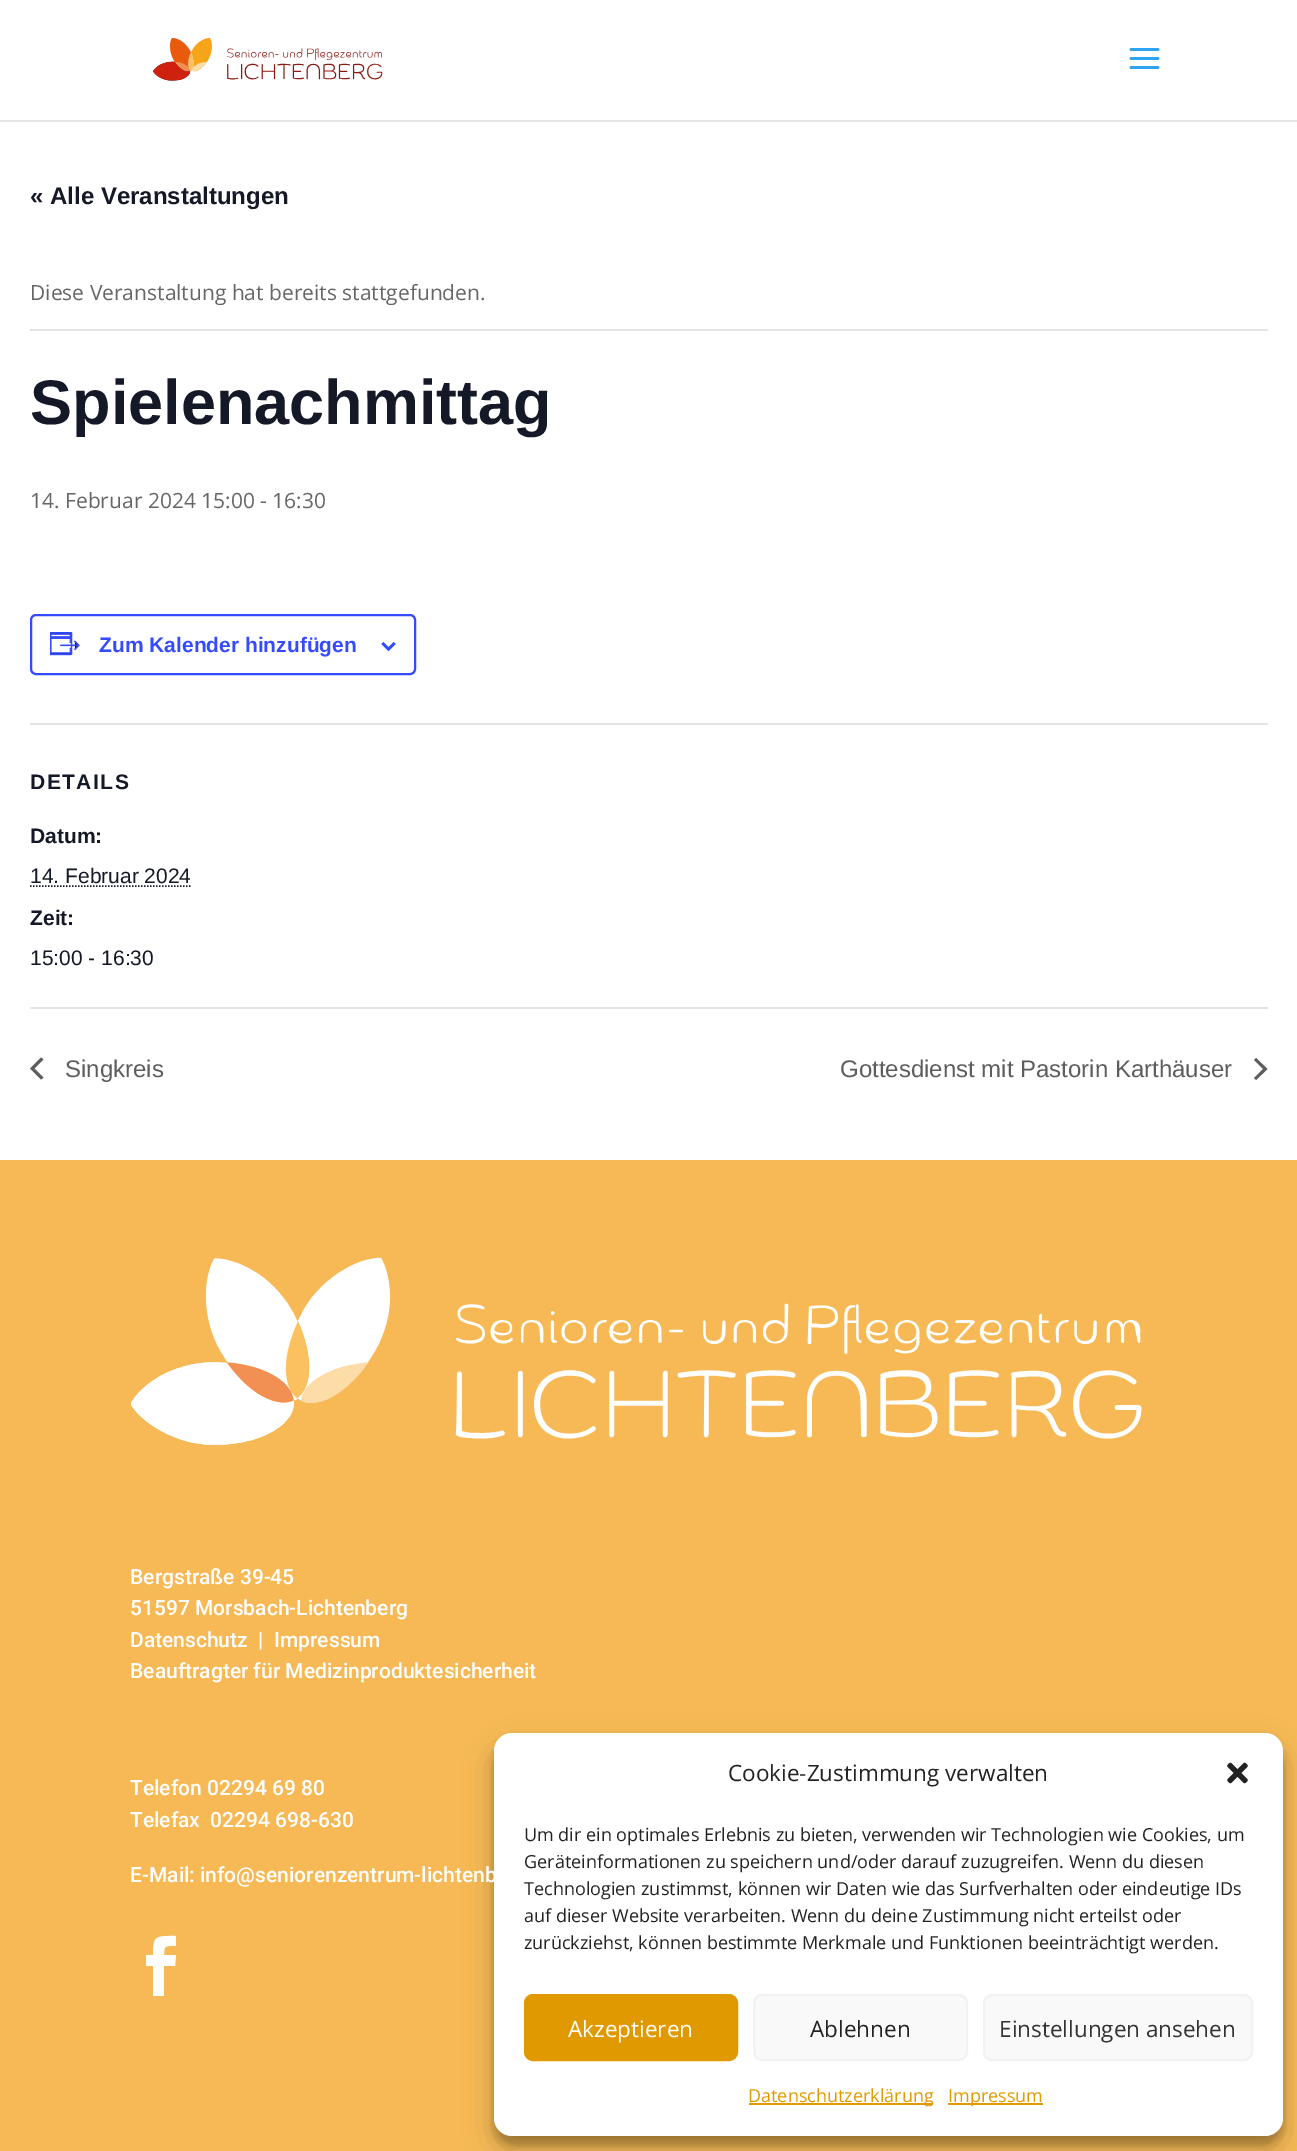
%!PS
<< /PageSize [1297 2151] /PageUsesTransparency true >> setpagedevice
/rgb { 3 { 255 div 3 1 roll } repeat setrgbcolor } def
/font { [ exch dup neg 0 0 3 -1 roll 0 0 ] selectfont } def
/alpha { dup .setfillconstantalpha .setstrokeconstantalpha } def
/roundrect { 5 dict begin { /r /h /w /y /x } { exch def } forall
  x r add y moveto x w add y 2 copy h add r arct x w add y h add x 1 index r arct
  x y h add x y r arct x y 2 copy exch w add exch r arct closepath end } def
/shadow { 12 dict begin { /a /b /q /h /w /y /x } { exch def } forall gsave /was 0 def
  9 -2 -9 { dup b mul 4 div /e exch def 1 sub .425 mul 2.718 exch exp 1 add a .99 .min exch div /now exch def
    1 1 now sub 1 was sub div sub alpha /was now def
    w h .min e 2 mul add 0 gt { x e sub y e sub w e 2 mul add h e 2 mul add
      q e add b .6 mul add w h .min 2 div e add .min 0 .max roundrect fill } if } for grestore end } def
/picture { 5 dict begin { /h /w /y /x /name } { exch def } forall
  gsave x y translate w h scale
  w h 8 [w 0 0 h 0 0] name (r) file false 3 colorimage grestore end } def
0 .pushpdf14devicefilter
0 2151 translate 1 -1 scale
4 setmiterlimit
255 255 255 rgb
0 0 1297 2151 rectfill
230 230 230 rgb
0 120 moveto 0 122 lineto 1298 122 lineto 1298 2 lineto 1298 120 lineto closepath fill
(img/1.rgb) 153 37 230 44 picture
(img/2.rgb) 1129 48 31 21 picture
228 228 228 rgb
30 329 1238 2 rectfill
51 74 255 rgb
2 setlinewidth
31 615 384 59 5 roundrect stroke
(img/3.rgb) 50 632 30 24 picture
(img/4.rgb) 381 642 15 9 picture
228 228 228 rgb
30 723 1238 2 rectfill
20 24 39 rgb
1.5 setlinewidth
[1.5 1.5] 0 setdash
30 886 moveto 191 886 lineto stroke
228 228 228 rgb
30 1007 1238 2 rectfill
93 93 93 rgb
43.5 1077.5 moveto 41 1079.5 lineto 30 1068.5 lineto 41 1057.5 lineto 43.5 1059.5 lineto 34.5 1068.5 lineto closepath fill
1254 1060 moveto 1256 1058 lineto 1267.5 1069 lineto 1256 1080 lineto 1254 1078 lineto 1263 1069 lineto closepath fill
247 185 86 rgb
0 1160 1297 991 rectfill
(img/5.rgb) 131 1257 1011 188 picture
255 255 255 rgb
153 1996 moveto 164 1996 lineto 164 1966 lineto 175 1966 lineto 176 1955 lineto 164 1955 lineto 164 1945 165 1946 176 1946 curveto 176 1936 lineto 156 1936 153 1935 153 1955 curveto 146 1955 lineto 146 1966 lineto 153 1966 lineto closepath fill
0 0 0 rgb
494 1742 789 403 18 4.5 0.23 shadow
494 1748 789 403 18 15 0.19 shadow
255 255 255 rgb
494 1733 789 403 18 roundrect fill
(img/6.rgb) 1227 1762 21 22 picture
224 153 0 rgb
525 1995 212 65 8 roundrect gsave fill grestore
2 setlinewidth
[] 0 setdash
stroke
249 249 249 rgb
754 1995 213 65 8 roundrect gsave fill grestore
242 242 242 rgb
stroke
249 249 249 rgb
984 1995 268 65 8 roundrect gsave fill grestore
242 242 242 rgb
stroke
224 153 0 rgb
749 2103 184 2 rectfill
948 2103 95 2 rectfill
/LiberationSans-Bold 24 font
20 24 39 rgb
30 204 moveto (« Alle Veranstaltungen) show
/OpenSans-Regular 21 font
102 102 102 rgb
30 300 moveto (Diese Veranstaltung hat bereits stattgefunden.) show
/LiberationSans-Bold 63 font
20 24 39 rgb
30 424 moveto (Spielenachmittag) show
/OpenSans-Regular 21 font
102 102 102 rgb
30 508 moveto (14. Februar 2024 15:00 - 16:30) show
/LiberationSans-Bold 21 font
51 74 255 rgb
99 652 moveto (Zum Kalender hinzufügen) show
20 24 39 rgb
30 789 moveto 1.5 0 (DETAILS) ashow
30 843 moveto (Datum:) show
/LiberationSans-Regular 21 font
30 883 moveto (14. Februar 2024) show
/LiberationSans-Bold 21 font
30 925 moveto (Zeit:) show
/LiberationSans-Regular 21 font
30 965 moveto (15:00 - 16:30) show
/LiberationSans-Regular 24 font
93 93 93 rgb
65 1077 moveto (Singkreis) show
840 1077 moveto (Gottesdienst mit Pastorin Karthäuser) show
/Roboto-Medium 21 font
255 255 255 rgb
[
  [(Bergstraße 39-45) 130 1584]
  [(51597 Morsbach-Lichtenberg) 130 1615]
  [(Datenschutz) 130 1647]
  [(|) 258 1647]
  [(Impressum) 274 1647]
  [(Beauftragter für Medizinproduktesicherheit) 130 1678]
  [(Telefon 02294 69 80) 130 1795]
  [(Telefax  02294 698-630) 130 1827]
  [(E-Mail: info@seniorenzentrum-lichtenb) 130 1882]
] { aload pop moveto show } forall
/OpenSans-Regular 22.5 font
34 34 34 rgb
728 1781 moveto (Cookie-Zustimmung verwalten) show
/OpenSans-Regular 18 font
[
  [(Um dir ein optimales Erlebnis zu bieten, verwenden wir Technologien wie Cookies, um) 524 1841]
  [(Geräteinformationen zu speichern und/oder darauf zuzugreifen. Wenn du diesen) 524 1868]
  [(Technologien zustimmst, können wir Daten wie das Surfverhalten oder eindeutige IDs) 524 1895]
  [(auf dieser Website verarbeiten. Wenn du deine Zustimmung nicht erteilst oder) 524 1922]
  [(zurückziehst, können bestimmte Merkmale und Funktionen beeinträchtigt werden.) 524 1949]
] { aload pop moveto show } forall
/OpenSans-Regular 22.5 font
255 255 255 rgb
568 2037 moveto (Akzeptieren) show
34 34 34 rgb
810 2037 moveto (Ablehnen) show
51 51 51 rgb
999 2037 moveto (Einstellungen ansehen) show
/OpenSans-Regular 18 font
224 153 0 rgb
748 2102 moveto (Datenschutzerklärung) show
948 2102 moveto (Impressum) show
.poppdf14devicefilter showpage
